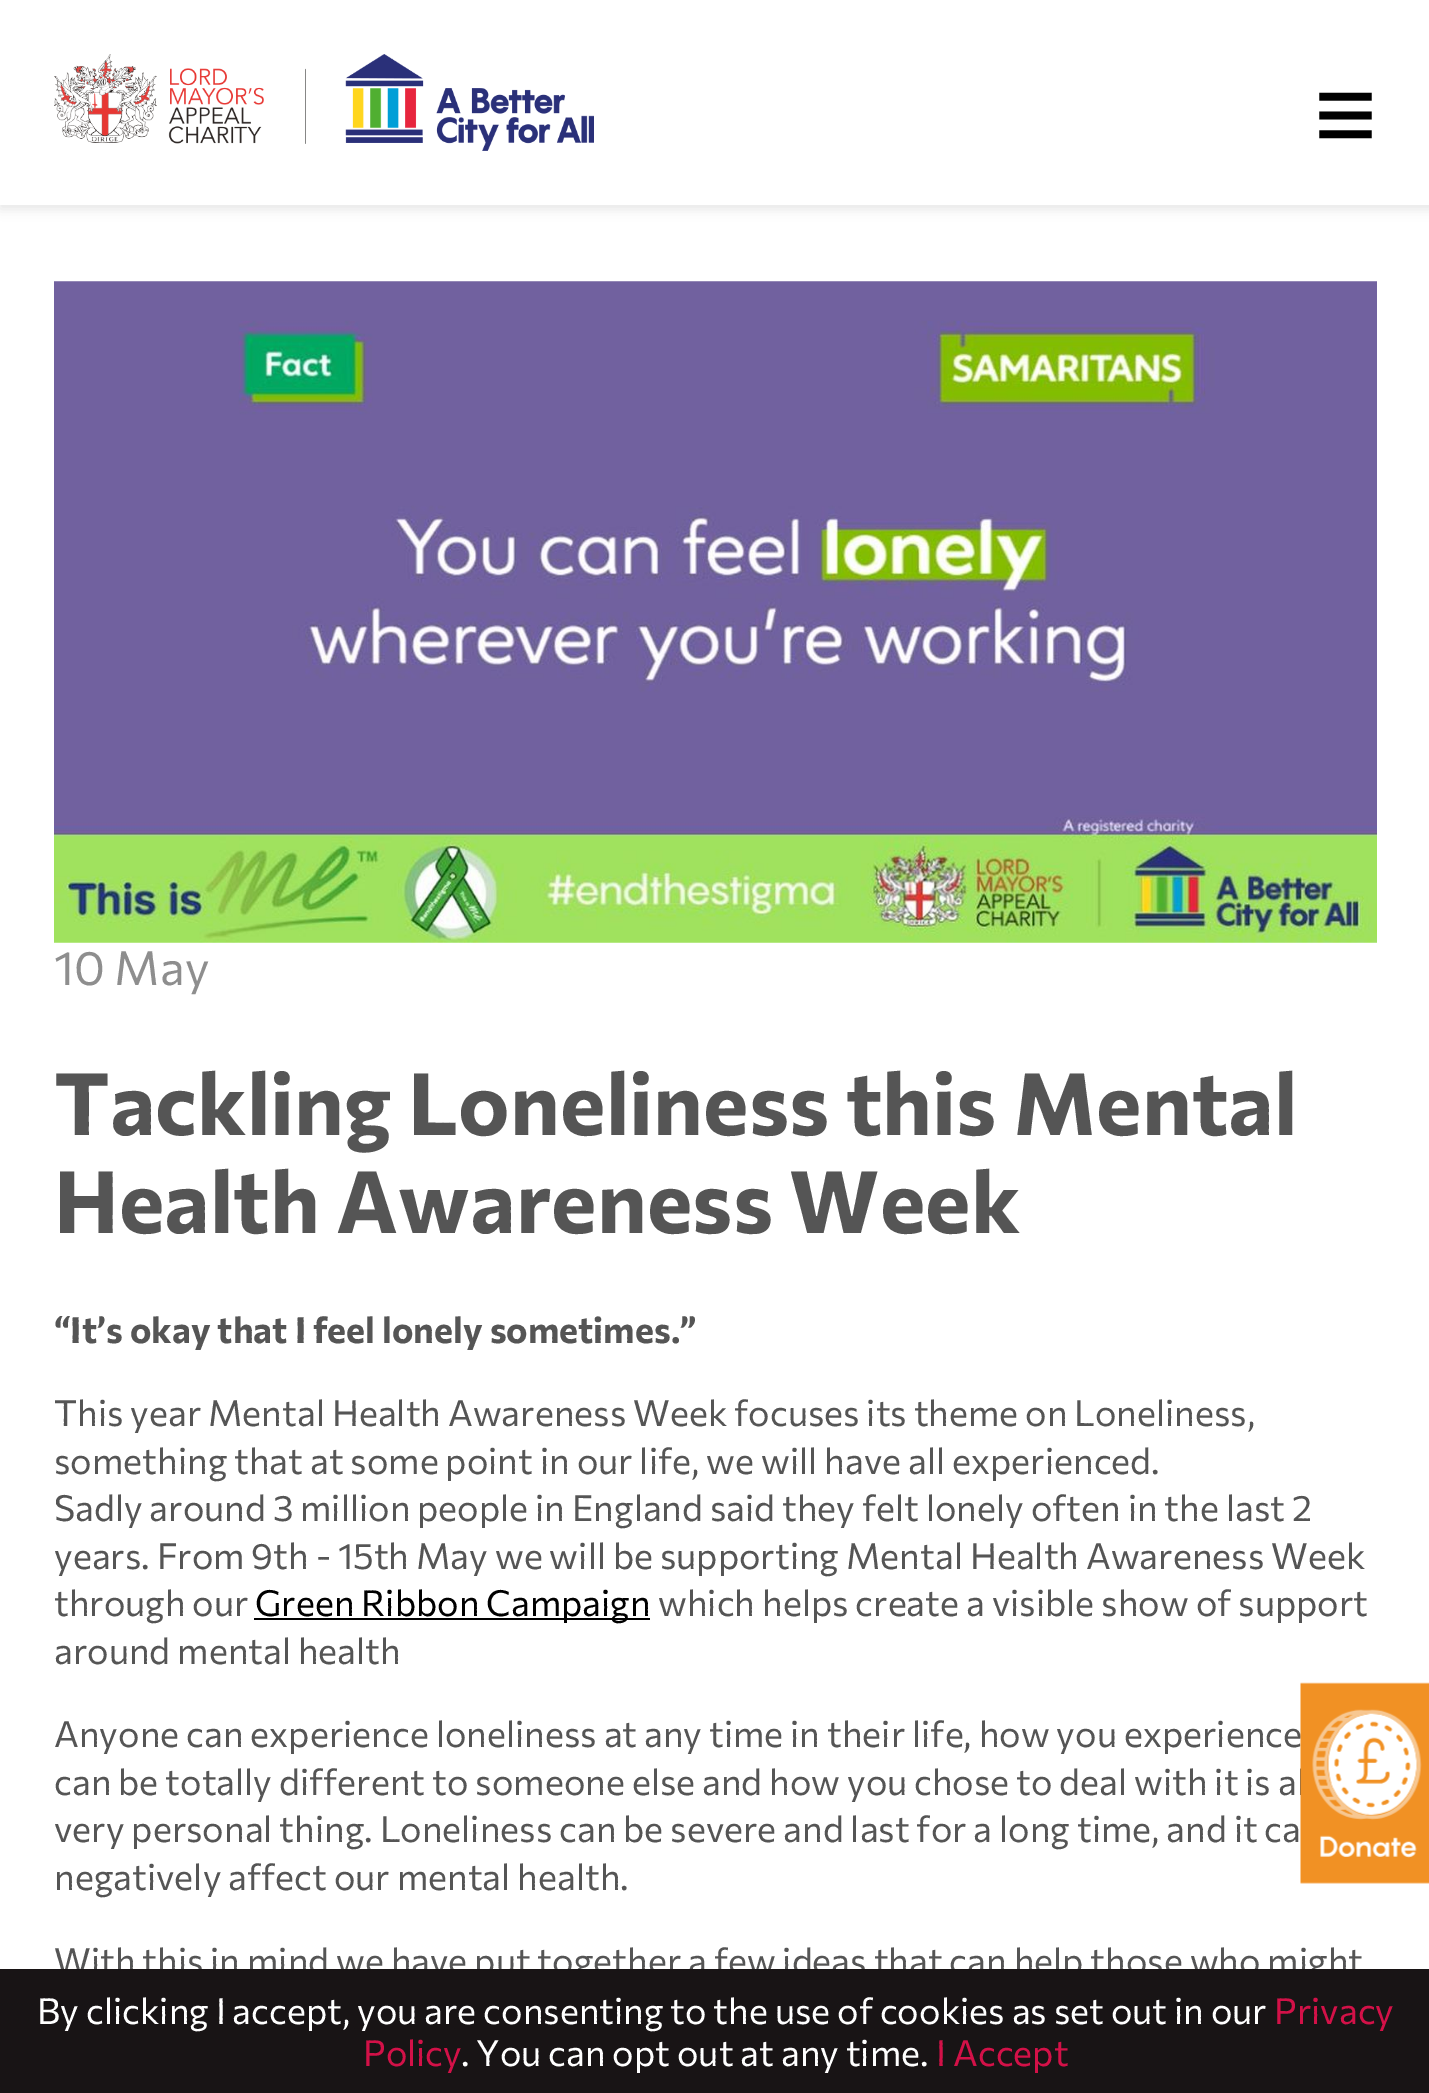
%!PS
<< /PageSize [1429 2093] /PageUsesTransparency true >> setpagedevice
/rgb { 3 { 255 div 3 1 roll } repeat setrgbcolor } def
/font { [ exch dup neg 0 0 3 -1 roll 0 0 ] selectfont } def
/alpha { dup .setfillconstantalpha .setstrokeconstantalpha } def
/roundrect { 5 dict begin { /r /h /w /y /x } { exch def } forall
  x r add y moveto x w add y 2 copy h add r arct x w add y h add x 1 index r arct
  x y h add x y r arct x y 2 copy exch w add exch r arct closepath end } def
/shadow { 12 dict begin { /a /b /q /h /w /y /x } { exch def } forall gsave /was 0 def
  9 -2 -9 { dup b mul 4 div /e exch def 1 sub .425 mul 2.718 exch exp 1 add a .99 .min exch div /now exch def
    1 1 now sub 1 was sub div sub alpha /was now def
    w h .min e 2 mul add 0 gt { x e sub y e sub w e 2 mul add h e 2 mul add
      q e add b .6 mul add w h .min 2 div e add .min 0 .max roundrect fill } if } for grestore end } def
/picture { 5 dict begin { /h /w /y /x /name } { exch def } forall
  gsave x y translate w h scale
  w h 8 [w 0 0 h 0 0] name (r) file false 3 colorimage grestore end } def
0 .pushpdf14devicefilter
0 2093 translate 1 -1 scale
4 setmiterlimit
255 255 255 rgb
0 0 1429 2093 rectfill
0 0 0 rgb
0 5 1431 204 0 5.5 0.1 shadow
255 255 255 rgb
0 0 1429 205 rectfill
(img/1.rgb) 54 54 540 97 picture
(img/2.rgb) 54 281 1323 662 picture
0 0 0 rgb
254 1618 396 2 rectfill
/LiberationSans-Regular 108 font
1314 151 moveto (≡) show
/Commissioner-Regular 47.5 font
142 142 142 rgb
54 985 moveto (10 May) show
/Commissioner-Bold 86.4 font
85 85 85 rgb
54 1135 moveto (Tackling Loneliness this Mental) show
54 1233 moveto (Health Awareness Week) show
/Commissioner-Bold 36 font
54 1343 moveto (“It’s okay that I feel lonely sometimes.”) show
/Commissioner-Regular 36 font
[
  [(This year Mental Health Awareness Week focuses its theme on Loneliness,) 54 1426]
  [(something that at some point in our life, we will have all experienced.) 54 1474]
  [(Sadly around 3 million people in England said they felt lonely often in the last 2) 54 1521]
  [(years. From 9th - 15th May we will be supporting Mental Health Awareness Week) 54 1569]
  [(through our) 54 1616]
] { aload pop moveto show } forall
0 0 0 rgb
255 1616 moveto (Green Ribbon Campaign) show
85 85 85 rgb
[
  [(which helps create a visible show of support) 658 1616]
  [(around mental health) 54 1664]
  [(Anyone can experience loneliness at any time in their life, how you experience) 54 1747]
  [(can be totally different to someone else and how you chose to deal with it is a) 54 1795]
  [(very personal thing. Loneliness can be severe and last for a long time, and it ca) 54 1842]
  [(negatively affect our mental health.) 54 1890]
  [(With this in mind we have put together a few ideas that can help those who might) 54 1974]
] { aload pop moveto show } forall
(img/3.rgb) 1300 1682 129 202 picture
24 20 21 rgb
0 1969 1429 124 rectfill
255 255 255 rgb
37 2024 moveto (By clicking I accept, you are consenting to the use of cookies as set out in our) show
211 17 72 rgb
1274 2024 moveto (Privacy) show
363 2066 moveto (Policy) show
255 255 255 rgb
461 2066 moveto (. You can opt out at any time.) show
211 17 72 rgb
936 2066 moveto (I Accept) show
.poppdf14devicefilter showpage
